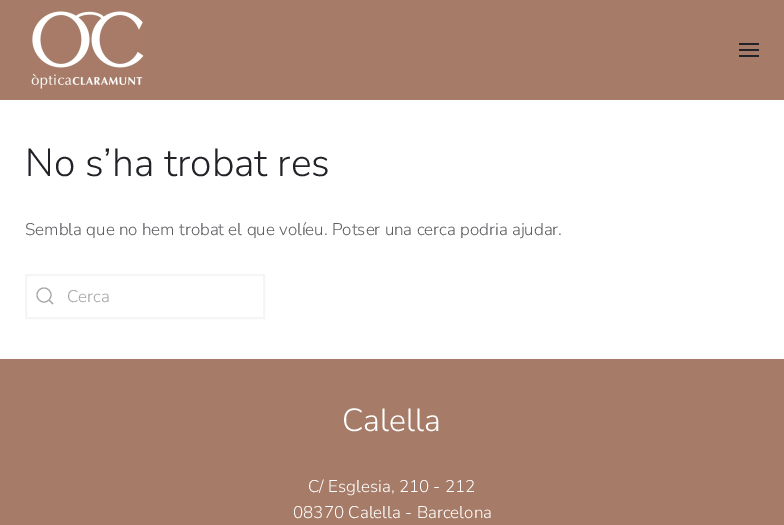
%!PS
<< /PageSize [784 525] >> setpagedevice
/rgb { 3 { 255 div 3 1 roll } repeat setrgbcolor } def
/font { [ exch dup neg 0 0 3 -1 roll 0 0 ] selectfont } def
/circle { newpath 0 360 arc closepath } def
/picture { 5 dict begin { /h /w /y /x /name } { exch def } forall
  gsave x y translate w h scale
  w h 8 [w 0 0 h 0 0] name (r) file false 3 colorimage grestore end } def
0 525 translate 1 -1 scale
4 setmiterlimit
255 255 255 rgb
0 0 784 525 rectfill
166 123 103 rgb
0 0 784 100 rectfill
(img/1.rgb) 31 11 113 78 picture
[
  [739 43 20 2 34 35 40]
  [739 49 20 2 34 35 40]
  [739 55 20 2 34 35 40]
] { aload pop rgb rectfill } forall
245 245 245 rgb
2 setlinewidth
26 275 238 43 rectstroke
167 167 167 rgb
1.1 setlinewidth
44 295 7 circle stroke
49 300 moveto 53 304 lineto closepath stroke
166 123 103 rgb
0 359 784 166 rectfill
/NunitoSans-ExtraLight 39 font
34 35 40 rgb
25 176 moveto (No s’ha trobat res) show
/NunitoSans-ExtraLight 17 font
95 95 99 rgb
25 235 moveto (Sembla que no hem trobat el que volíeu. Potser una cerca podria ajudar.) show
167 167 167 rgb
67 302 moveto (Cerca) show
/NunitoSans-ExtraLight 32 font
255 255 255 rgb
342 431 moveto (Calella) show
/NunitoSans-ExtraLight 17 font
308 492 moveto (C/ Esglesia, 210 - 212) show
293 518 moveto (08370 Calella - Barcelona) show
showpage
